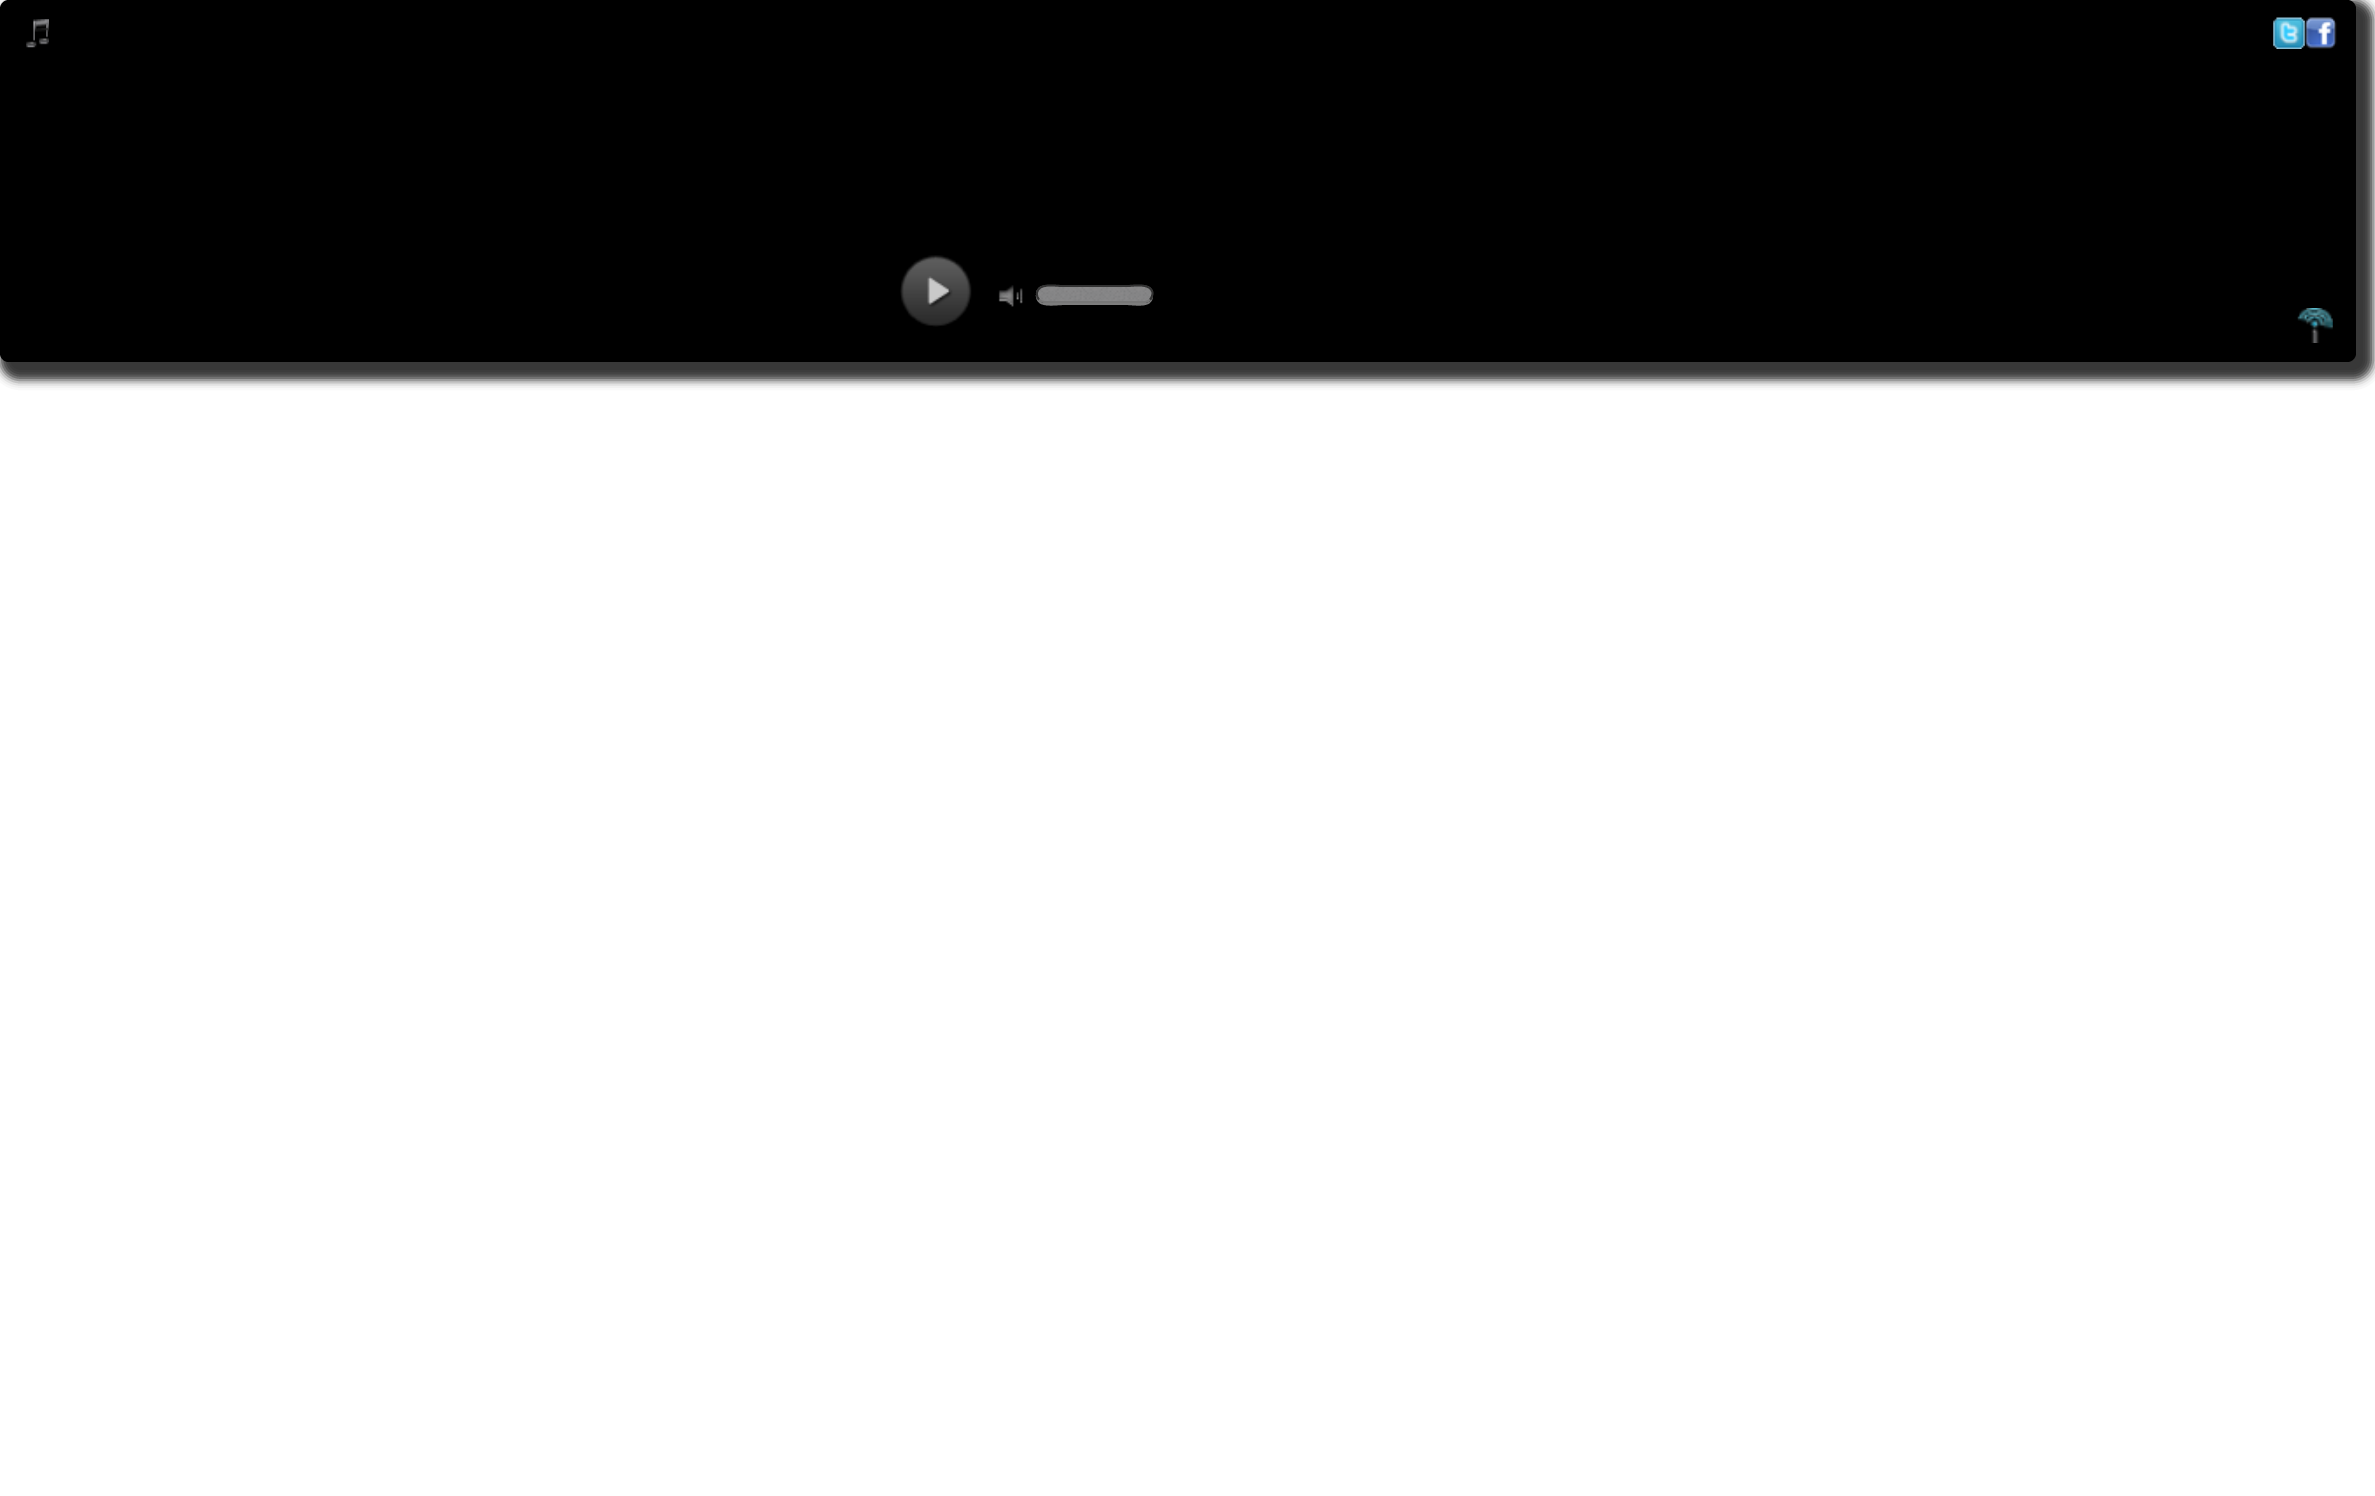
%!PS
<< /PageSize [2375 1496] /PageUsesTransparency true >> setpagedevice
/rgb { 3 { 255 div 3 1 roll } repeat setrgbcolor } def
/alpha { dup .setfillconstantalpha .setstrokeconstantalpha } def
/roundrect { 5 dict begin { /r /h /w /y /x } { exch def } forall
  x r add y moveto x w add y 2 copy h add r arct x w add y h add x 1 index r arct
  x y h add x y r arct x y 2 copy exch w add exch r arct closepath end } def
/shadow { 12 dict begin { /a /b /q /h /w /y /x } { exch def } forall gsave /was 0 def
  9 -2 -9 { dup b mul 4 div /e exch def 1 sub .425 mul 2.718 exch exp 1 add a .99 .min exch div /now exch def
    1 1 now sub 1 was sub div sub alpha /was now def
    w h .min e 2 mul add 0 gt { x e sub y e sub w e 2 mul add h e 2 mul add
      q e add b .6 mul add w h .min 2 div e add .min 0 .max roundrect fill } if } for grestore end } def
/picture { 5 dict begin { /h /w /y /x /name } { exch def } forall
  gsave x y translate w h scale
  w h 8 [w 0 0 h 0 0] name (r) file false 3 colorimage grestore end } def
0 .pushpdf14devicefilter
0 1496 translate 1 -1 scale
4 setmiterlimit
255 255 255 rgb
0 0 2375 1496 rectfill
51 51 51 rgb
0 0 2373 380 18 4.5 1 shadow
0 0 0 rgb
0 0 2356 362 9 roundrect fill
(img/1.rgb) 26 19 23 29 picture
(img/2.rgb) 2273 17 32 32 picture
(img/3.rgb) 2305 17 32 32 picture
(img/4.rgb) 900 255 72 72 picture
(img/5.rgb) 998 285 25 22 picture
125 125 125 rgb
1036 295 moveto 1035 309 1055 305 1062 305 curveto 1128 305 lineto 1134 305 1153 309 1153 296 curveto 1152 300 1149 303 1144 303 curveto 1045 303 lineto 1040 303 1037 299 1036 295 curveto closepath fill
(img/6.rgb) 1036 285 118 18 picture
119 119 119 rgb
1.8 setlinewidth
1150 299.5 moveto 1148.5 301 1146.5 302 1144.5 302 curveto 1045 302 lineto 1042.5 302 1040.5 301 1039 299.5 curveto stroke
51 51 51 rgb
1039 299.5 moveto 1037.5 298 1036.5 295.5 1037 293 curveto 1038 282.5 1056 286 1061.5 286 curveto 1128 286 lineto 1133 286 1151.5 282.5 1152.5 293 curveto 1152.5 295.5 1151.5 298 1150 299.5 curveto stroke
(img/7.rgb) 2297 308 36 35 picture
.poppdf14devicefilter showpage
